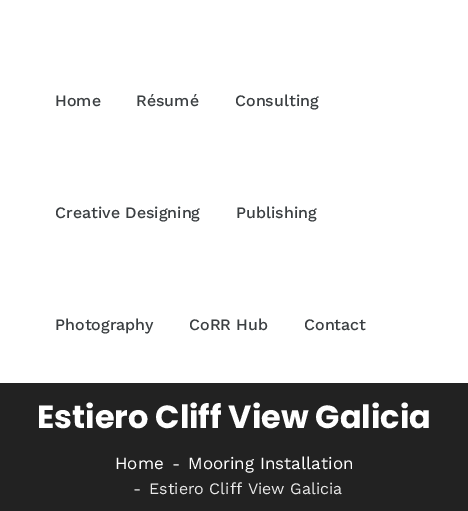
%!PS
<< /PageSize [468 511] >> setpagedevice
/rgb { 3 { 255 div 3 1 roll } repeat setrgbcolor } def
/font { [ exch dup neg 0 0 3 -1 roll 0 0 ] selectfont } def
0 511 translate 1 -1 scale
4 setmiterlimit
255 255 255 rgb
0 0 468 511 rectfill
34 34 34 rgb
0 383 468 128 rectfill
/WorkSans-Medium 16 font
59 63 66 rgb
[
  [(Home) 55 106]
  [(Résumé) 136 106]
  [(Consulting) 235 106]
  [(Creative Designing) 55 218]
  [(Publishing) 236 218]
  [(Photography) 55 330]
  [(CoRR Hub) 189 330]
  [(Contact) 304 330]
] { aload pop moveto show } forall
/Poppins-Bold 32 font
255 255 255 rgb
37 428 moveto (Estiero Cliff View Galicia) show
/WorkSans-Regular 17 font
115 469 moveto (Home) show
/WorkSans-Regular 16 font
172 469 moveto (-) show
/WorkSans-Regular 17 font
188 469 moveto (Mooring Installation) show
/WorkSans-Regular 16 font
233 233 233 rgb
133 494 moveto (-) show
149 494 moveto (Estiero Cliff View Galicia) show
showpage
